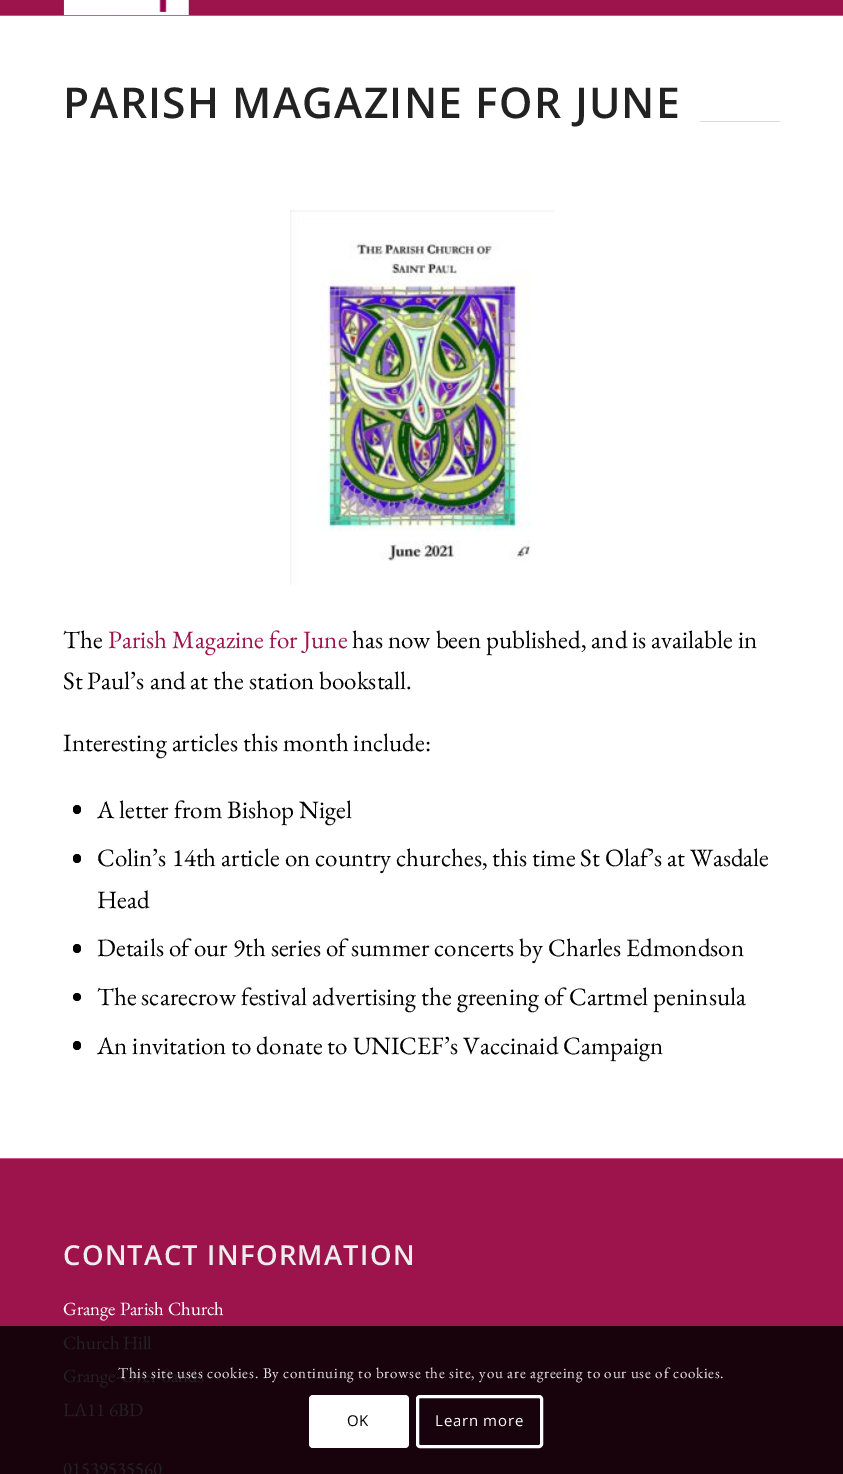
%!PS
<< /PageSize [843 1474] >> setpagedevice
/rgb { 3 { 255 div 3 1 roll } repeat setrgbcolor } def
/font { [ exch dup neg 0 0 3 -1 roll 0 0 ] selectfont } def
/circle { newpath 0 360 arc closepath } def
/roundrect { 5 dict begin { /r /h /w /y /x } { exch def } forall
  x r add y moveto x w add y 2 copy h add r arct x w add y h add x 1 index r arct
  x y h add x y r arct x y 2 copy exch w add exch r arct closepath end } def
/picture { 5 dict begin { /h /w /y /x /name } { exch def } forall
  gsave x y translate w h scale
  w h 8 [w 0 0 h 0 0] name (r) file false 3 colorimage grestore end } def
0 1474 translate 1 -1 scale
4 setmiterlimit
157 20 77 rgb
0 0 843 1474 rectfill
207 83 132 rgb
0 15 843 1 rectfill
(img/1.rgb) 63 0 126 16 picture
[
  [0 1326 843 148 24 3 12]
  [0 16 843 1142 255 255 255]
  [700 121 80 1 217 217 217]
] { aload pop rgb rectfill } forall
(img/2.rgb) 290 210 265 375 picture
0 0 0 rgb
73 805 8 9 4 roundrect fill
73 854 8 9 4 roundrect fill
73 944 8 9 4 roundrect fill
77 997 4 circle fill
73 1041 8 9 4 roundrect fill
207 83 132 rgb
0 1158 843 1 rectfill
255 255 255 rgb
309 1395 100 53 4 roundrect fill
3 setlinewidth
417.5 1396.5 124 50 2.5 roundrect stroke
/OpenSans-SemiBold 42.5 font
34 34 34 rgb
63 118 moveto 1.25 0 (PARISH MAGAZINE FOR JUNE) ashow
/EBGaramond-Regular 25 font
0 0 0 rgb
63 648 moveto (The) show
157 20 77 rgb
108 648 moveto (Parish Magazine for June) show
0 0 0 rgb
[
  [(has now been published, and is available in) 352 648]
  [(St Paul’s and at the station bookstall.) 63 689]
  [(Interesting articles this month include:) 63 751]
  [(A letter from Bishop Nigel) 97 818]
  [(Colin’s 14th article on country churches, this time St Olaf’s at Wasdale) 97 866]
  [(Head) 97 908]
  [(Details of our 9th series of summer concerts by Charles Edmondson) 97 956]
  [(The scarecrow festival advertising the greening of Cartmel peninsula) 97 1005]
  [(An invitation to donate to UNICEF’s Vaccinaid Campaign) 97 1054]
] { aload pop moveto show } forall
/OpenSans-SemiBold 27.5 font
237 237 237 rgb
63 1265 moveto 1.25 0 (CONTACT INFORMATION) ashow
/EBGaramond-Regular 18.75 font
255 255 255 rgb
63 1315 moveto (Grange Parish Church) show
34 34 34 rgb
[
  [(Church Hill) 63 1349]
  [(Grange-Over-Sands) 63 1382]
  [(LA11 6BD) 63 1416]
  [(01539535560) 63 1475]
] { aload pop moveto show } forall
/EBGaramond-Regular 15 font
232 230 231 rgb
118 1378 moveto 0.75 0 (This site uses cookies. By continuing to browse the site, you are agreeing to our use of cookies.) ashow
/OpenSans-Regular 15 font
0 0 0 rgb
347 1426 moveto 0.75 0 (OK) ashow
255 255 255 rgb
435 1426 moveto 0.75 0 (Learn more) ashow
showpage
